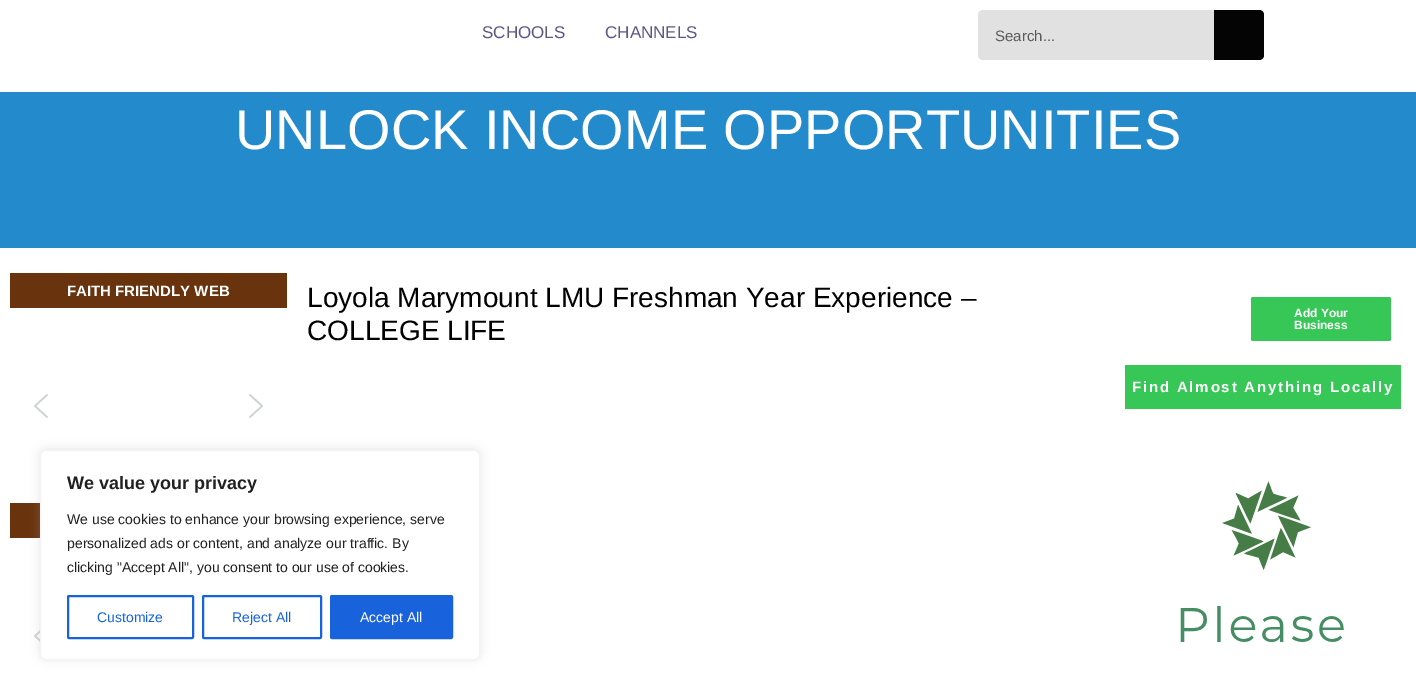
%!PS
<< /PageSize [1416 700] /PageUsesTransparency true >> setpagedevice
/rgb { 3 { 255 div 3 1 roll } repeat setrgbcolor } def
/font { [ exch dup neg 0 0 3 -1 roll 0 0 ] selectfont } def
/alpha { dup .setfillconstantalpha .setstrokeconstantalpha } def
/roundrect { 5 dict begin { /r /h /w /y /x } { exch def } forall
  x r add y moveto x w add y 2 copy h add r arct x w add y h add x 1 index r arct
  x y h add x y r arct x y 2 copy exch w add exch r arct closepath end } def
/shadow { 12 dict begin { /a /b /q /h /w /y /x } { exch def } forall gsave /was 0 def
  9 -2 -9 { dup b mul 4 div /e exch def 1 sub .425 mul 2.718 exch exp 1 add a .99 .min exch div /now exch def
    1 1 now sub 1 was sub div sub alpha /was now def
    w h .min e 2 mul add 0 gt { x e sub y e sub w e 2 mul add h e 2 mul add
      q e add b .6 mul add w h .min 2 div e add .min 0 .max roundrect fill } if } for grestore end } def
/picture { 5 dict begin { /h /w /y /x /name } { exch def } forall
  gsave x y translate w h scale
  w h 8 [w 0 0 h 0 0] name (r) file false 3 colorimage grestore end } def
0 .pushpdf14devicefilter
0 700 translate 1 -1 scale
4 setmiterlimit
255 255 255 rgb
0 0 1416 700 rectfill
225 225 225 rgb
978 10 286 50 5 roundrect fill
4 4 5 rgb
1214 10 moveto 1259 10 lineto 1262 10 1264 12 1264 15 curveto 1264 55 lineto 1264 58 1262 60 1259 60 curveto 1214 60 lineto closepath fill
35 138 203 rgb
0 92 1416 156 rectfill
105 51 13 rgb
10 273 277 35 rectfill
(img/1.rgb) 34 394 14 24 picture
(img/2.rgb) 249 394 14 24 picture
10 503 30 35 rectfill
(img/3.rgb) 34 630 6 12 picture
54 199 87 rgb
1251 297 140 44 2 roundrect fill
1125 365 276 44 rectfill
(img/4.rgb) 1180 481 164 161 picture
172 171 171 rgb
40 449 440 210 6 5 0.3 shadow
255 255 255 rgb
40.5 450.5 439 209 5.5 roundrect gsave fill grestore
244 244 244 rgb
stroke
24 99 220 rgb
2 setlinewidth
68 596 125 42 1 roundrect stroke
203 596 118 42 1 roundrect stroke
331 596 121 42 1 roundrect gsave fill grestore
stroke
/LiberationSans-Regular 17 font
94 86 132 rgb
482 38 moveto (SCHOOLS) show
605 38 moveto (CHANNELS) show
/LiberationSans-Regular 15 font
90 90 90 rgb
995 41 moveto (Search...) show
/LiberationSans-Regular 56 font
255 255 255 rgb
235 149 moveto (UNLOCK INCOME OPPORTUNITIES) show
/LiberationSans-Bold 15 font
67 296 moveto (FAITH FRIENDLY WEB) show
/LiberationSans-Regular 28 font
0 0 0 rgb
307 307 moveto (Loyola Marymount LMU Freshman Year Experience –) show
307 340 moveto (COLLEGE LIFE) show
/LiberationSans-Bold 12 font
255 255 255 rgb
1294 317 moveto (Add Your) show
1294 329 moveto (Business) show
/LiberationSans-Bold 15 font
1132 392 moveto 1.8 0 (Find Almost Anything Locally) ashow
/LiberationSans-Bold 18 font
33 33 33 rgb
67 489 moveto (We value your privacy) show
/LiberationSans-Regular 14 font
[
  [(We use cookies to enhance your browsing experience, serve) 67 524]
  [(personalized ads or content, and analyze our traffic. By) 67 548]
  [(clicking "Accept All", you consent to our use of cookies.) 67 572]
] { aload pop moveto show } forall
24 99 220 rgb
97 622 moveto (Customize) show
232 622 moveto (Reject All) show
255 255 255 rgb
360 622 moveto (Accept All) show
.poppdf14devicefilter showpage
